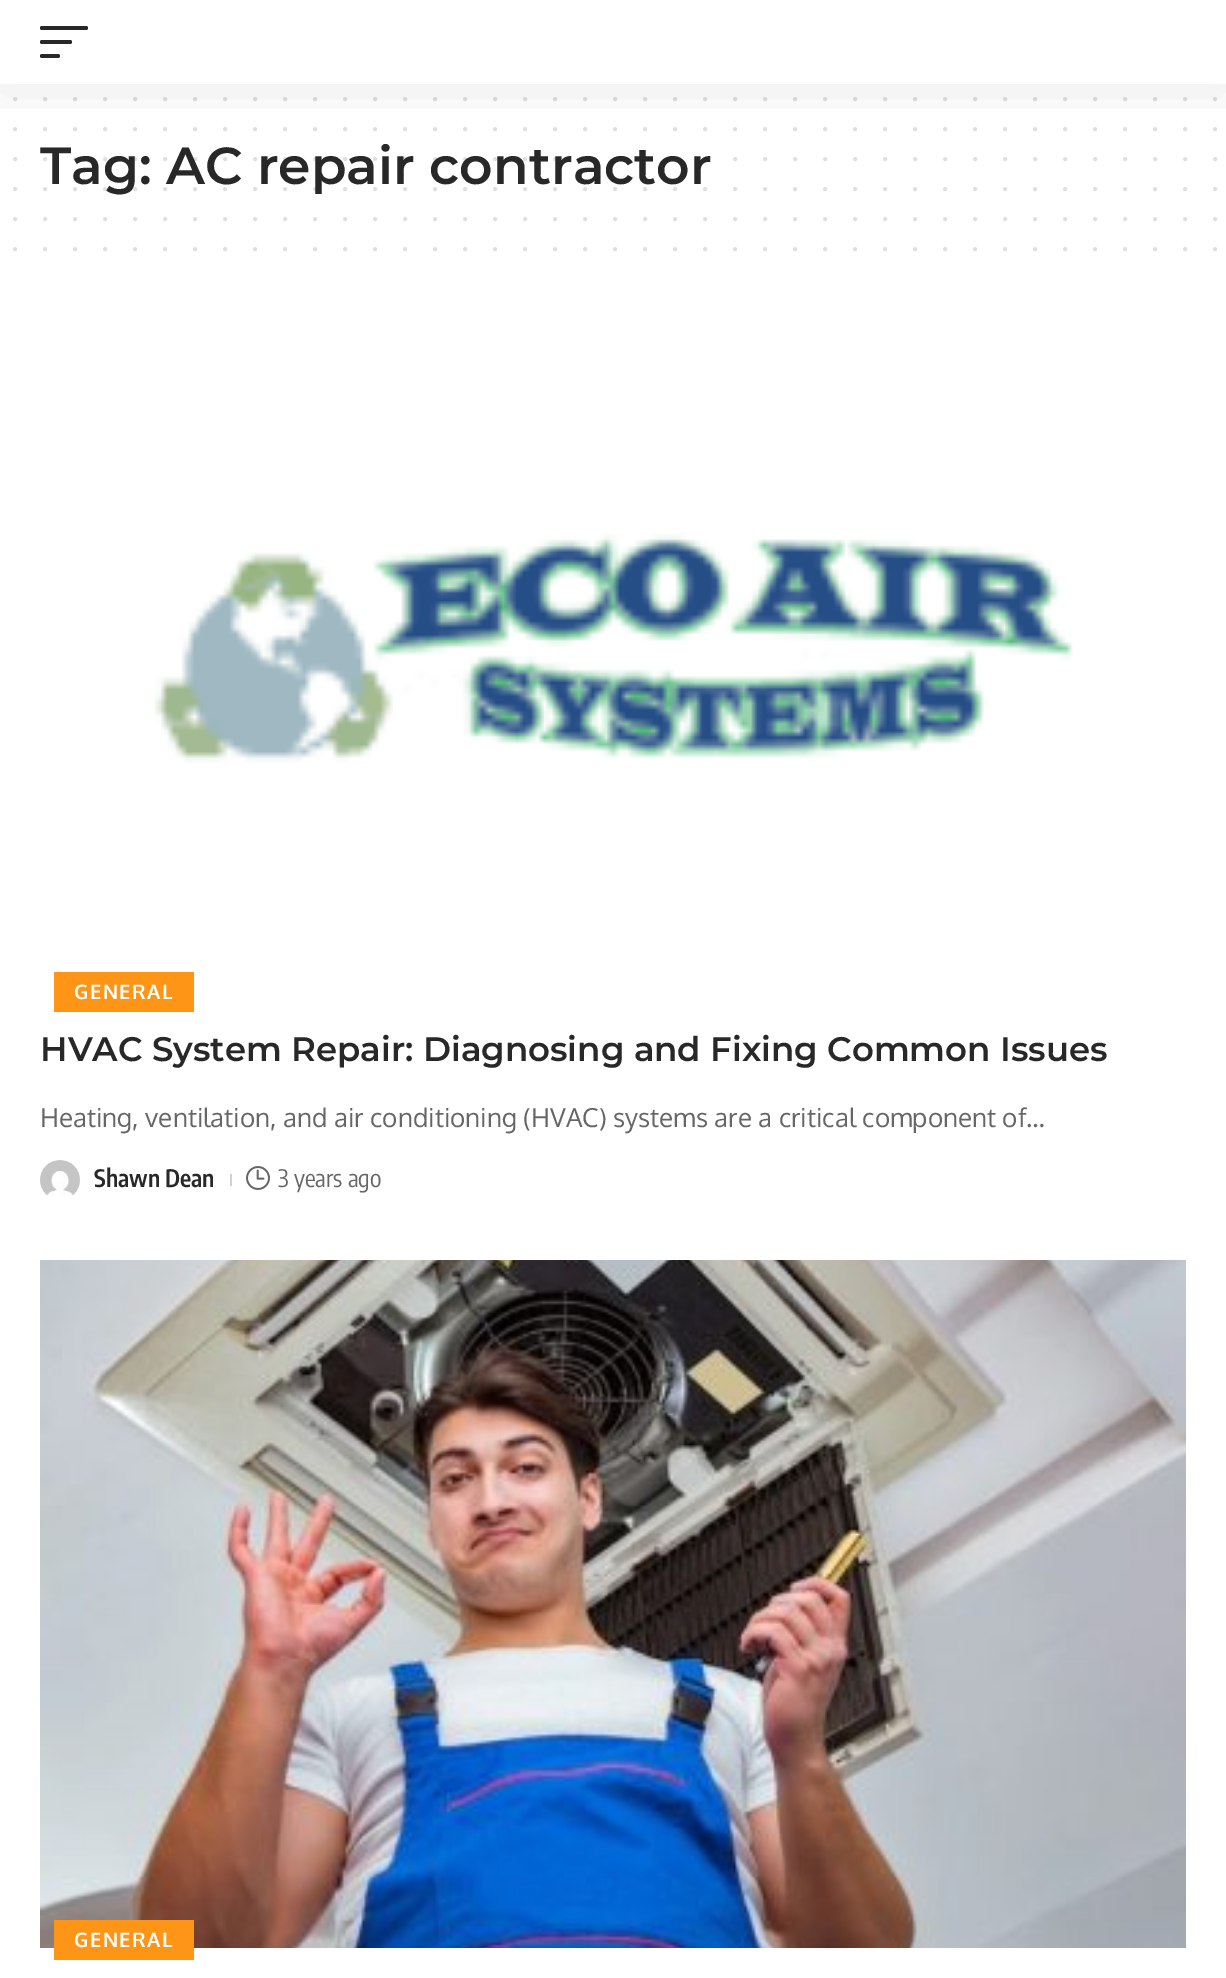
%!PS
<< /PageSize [1226 1978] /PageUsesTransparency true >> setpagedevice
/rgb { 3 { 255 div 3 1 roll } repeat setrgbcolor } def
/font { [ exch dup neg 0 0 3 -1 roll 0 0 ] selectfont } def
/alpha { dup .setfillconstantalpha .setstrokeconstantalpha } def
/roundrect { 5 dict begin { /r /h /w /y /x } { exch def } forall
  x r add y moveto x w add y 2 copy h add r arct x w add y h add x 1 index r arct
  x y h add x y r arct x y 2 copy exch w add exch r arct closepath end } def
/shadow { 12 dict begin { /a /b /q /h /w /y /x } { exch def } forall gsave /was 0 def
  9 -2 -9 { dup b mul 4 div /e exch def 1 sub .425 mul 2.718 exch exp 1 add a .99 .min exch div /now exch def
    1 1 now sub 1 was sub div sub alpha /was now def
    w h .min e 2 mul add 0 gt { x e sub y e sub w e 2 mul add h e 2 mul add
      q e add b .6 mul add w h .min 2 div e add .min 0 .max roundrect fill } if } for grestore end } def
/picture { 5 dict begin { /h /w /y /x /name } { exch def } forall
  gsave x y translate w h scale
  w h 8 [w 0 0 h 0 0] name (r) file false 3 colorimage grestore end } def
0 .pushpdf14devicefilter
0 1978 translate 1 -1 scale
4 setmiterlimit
255 255 255 rgb
0 0 1226 1978 rectfill
223 223 223 rgb
4 setlinewidth
1 setlinecap
[0 30] 0 setdash
15 99 moveto 1215.4 99 lineto stroke
15 129 moveto 1215.4 129 lineto stroke
15 219 moveto 1215.4 219 lineto stroke
15 249 moveto 1215.4 249 lineto stroke
(img/1.rgb) 154 534 919 229 picture
255 149 22 rgb
54 972 140 40 rectfill
(img/2.rgb) 40 1160 40 36 picture
209 209 209 rgb
230 1174 2 12 rectfill
(img/3.rgb) 246 1166 24 24 picture
(img/4.rgb) 40 1260 1146 688 picture
255 149 22 rgb
54 1920 140 40 rectfill
/Montserrat-Thin 52 font
40 40 40 rgb
40 184 moveto (Tag: AC repair contractor) show
0.15 alpha
15 159 moveto 1215.4 159 lineto stroke
gsave
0 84 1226 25 rectclip
1 alpha
0 0 0 rgb
0 8 1226 84 0 30 0.07 shadow
grestore
1 alpha
40 54 20 4 2 roundrect fill
40 40 32 4 2 roundrect fill
40 26 48 4 2 roundrect fill
0.15 alpha
15 189 moveto 1215.4 189 lineto stroke
/Oxygen-Bold 20 font
1 alpha
255 255 255 rgb
74 999 moveto 1.5 0 (GENERAL) ashow
/Montserrat-Thin 34 font
40 40 40 rgb
40 1061 moveto (HVAC System Repair: Diagnosing and Fixing Common Issues) show
/Oxygen-Regular 26 font
102 102 102 rgb
40 1127 moveto (Heating, ventilation, and air conditioning \(HVAC\) systems are a critical component of…) show
/EncodeSansCondensed-SemiBold 24 font
40 40 40 rgb
94 1187 moveto (Shawn Dean) show
/EncodeSansCondensed-Regular 24 font
102 102 102 rgb
278 1187 moveto (3 years ago) show
/Oxygen-Bold 20 font
255 255 255 rgb
74 1947 moveto 1.5 0 (GENERAL) ashow
.poppdf14devicefilter showpage
